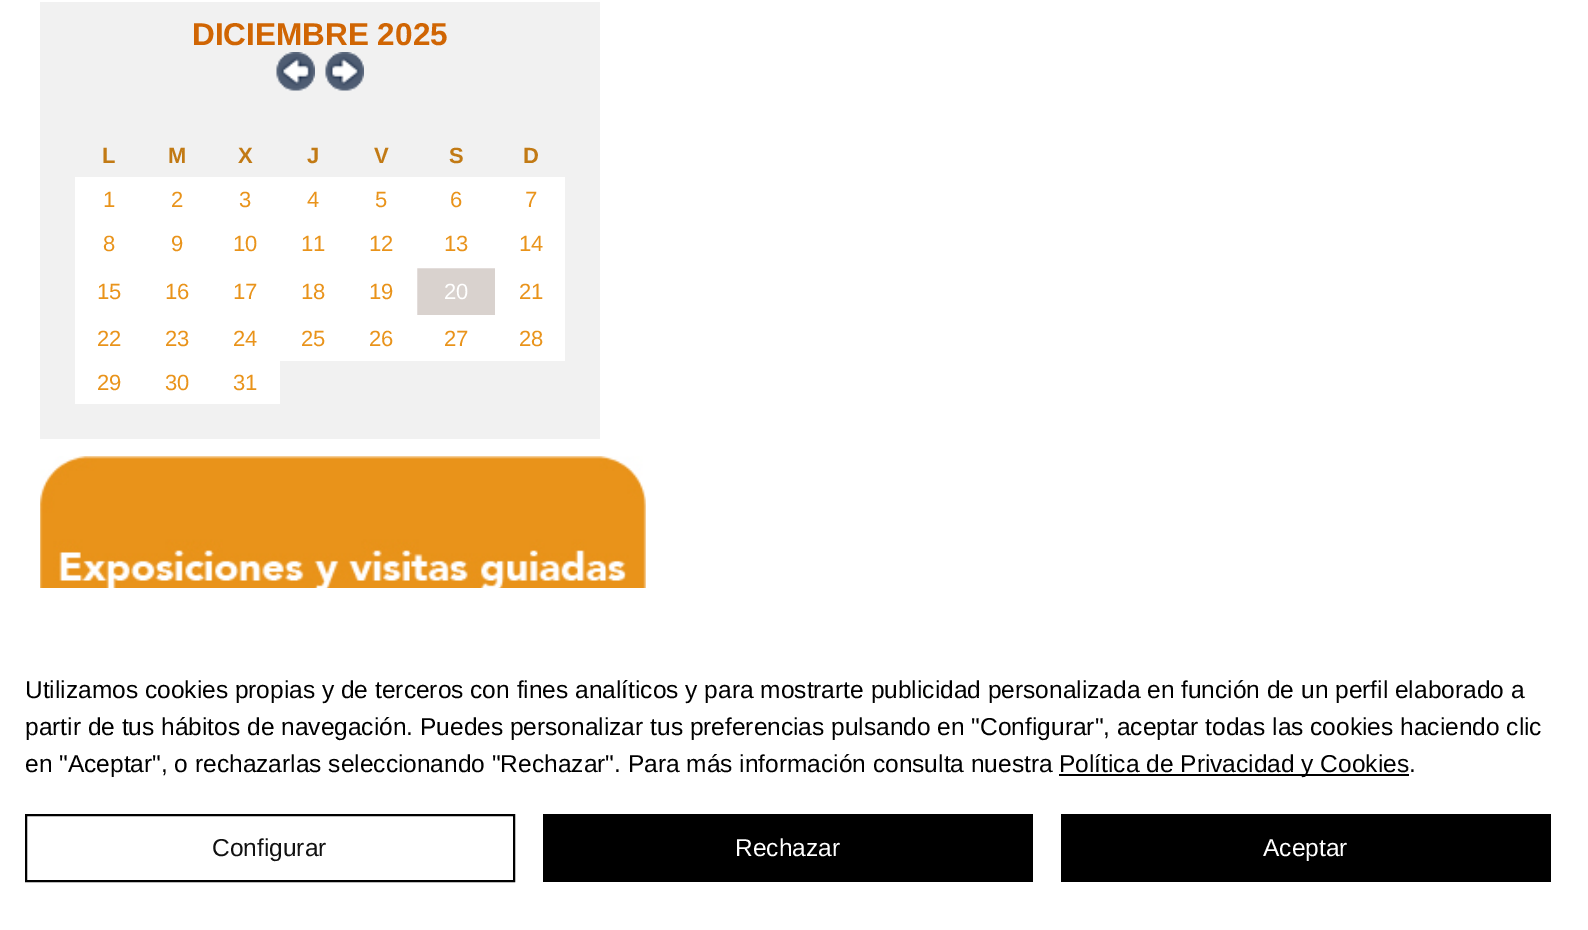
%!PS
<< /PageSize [1588 930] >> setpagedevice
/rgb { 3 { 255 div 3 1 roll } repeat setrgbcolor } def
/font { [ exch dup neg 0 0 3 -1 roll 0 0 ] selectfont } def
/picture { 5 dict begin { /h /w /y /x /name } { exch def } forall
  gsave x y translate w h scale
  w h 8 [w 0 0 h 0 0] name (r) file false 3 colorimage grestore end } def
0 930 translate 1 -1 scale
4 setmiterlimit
255 255 255 rgb
0 0 1588 930 rectfill
241 241 241 rgb
40 2 560 437 rectfill
(img/1.rgb) 276 52 39 39 picture
(img/2.rgb) 325 52 39 39 picture
[
  [75 177 490 44 255 255 255]
  [75 221 490 45 255 255 255]
  [75 266 340 51 255 255 255]
] { aload pop rgb rectfill } forall
217 210 206 rgb
416 267 moveto 496 267 lineto 496 316 lineto 416 316 lineto closepath gsave fill grestore
255 255 255 rgb
2 setlinewidth
stroke
[
  [497 266 68 51 255 255 255]
  [75 317 490 44 255 255 255]
  [75 361 205 43 255 255 255]
] { aload pop rgb rectfill } forall
(img/3.rgb) 40 456 606 132 picture
0 0 0 rgb
1059 774 350 2 rectfill
26 815 488 66 rectstroke
543 814 490 68 rectfill
1061 814 490 68 rectfill
/LiberationSans-Bold 31.5 font
208 101 3 rgb
192 45 moveto (DICIEMBRE 2025) show
/LiberationSans-Bold 22 font
194 122 20 rgb
[
  [(L) 102 163]
  [(M) 168 163]
  [(X) 238 163]
  [(J) 307 163]
  [(V) 374 163]
  [(S) 449 163]
  [(D) 523 163]
] { aload pop moveto show } forall
/LiberationSans-Regular 22 font
233 147 26 rgb
[
  [(1) 103 207]
  [(2) 171 207]
  [(3) 239 207]
  [(4) 307 207]
  [(5) 375 207]
  [(6) 450 207]
  [(7) 525 207]
  [(8) 103 251]
  [(9) 171 251]
  [(10) 233 251]
  [(11) 301 251]
  [(12) 369 251]
  [(13) 444 251]
  [(14) 519 251]
  [(15) 97 299]
  [(16) 165 299]
  [(17) 233 299]
  [(18) 301 299]
  [(19) 369 299]
] { aload pop moveto show } forall
255 255 255 rgb
444 299 moveto (20) show
233 147 26 rgb
[
  [(21) 519 299]
  [(22) 97 346]
  [(23) 165 346]
  [(24) 233 346]
  [(25) 301 346]
  [(26) 369 346]
  [(27) 444 346]
  [(28) 519 346]
  [(29) 97 390]
  [(30) 165 390]
  [(31) 233 390]
] { aload pop moveto show } forall
/LiberationSans-Regular 24.5 font
0 0 0 rgb
[
  [(Utilizamos cookies propias y de terceros con fines analíticos y para mostrarte publicidad personalizada en función de un perfil elaborado a) 25 698]
  [(partir de tus hábitos de navegación. Puedes personalizar tus preferencias pulsando en "Configurar", aceptar todas las cookies haciendo clic) 25 735]
  [(en "Aceptar", o rechazarlas seleccionando "Rechazar". Para más información consulta nuestra) 25 772]
  [(Política de Privacidad y Cookies.) 1059 772]
] { aload pop moveto show } forall
17 17 17 rgb
212 856 moveto (Configurar) show
255 255 255 rgb
735 856 moveto (Rechazar) show
1263 856 moveto (Aceptar) show
showpage
